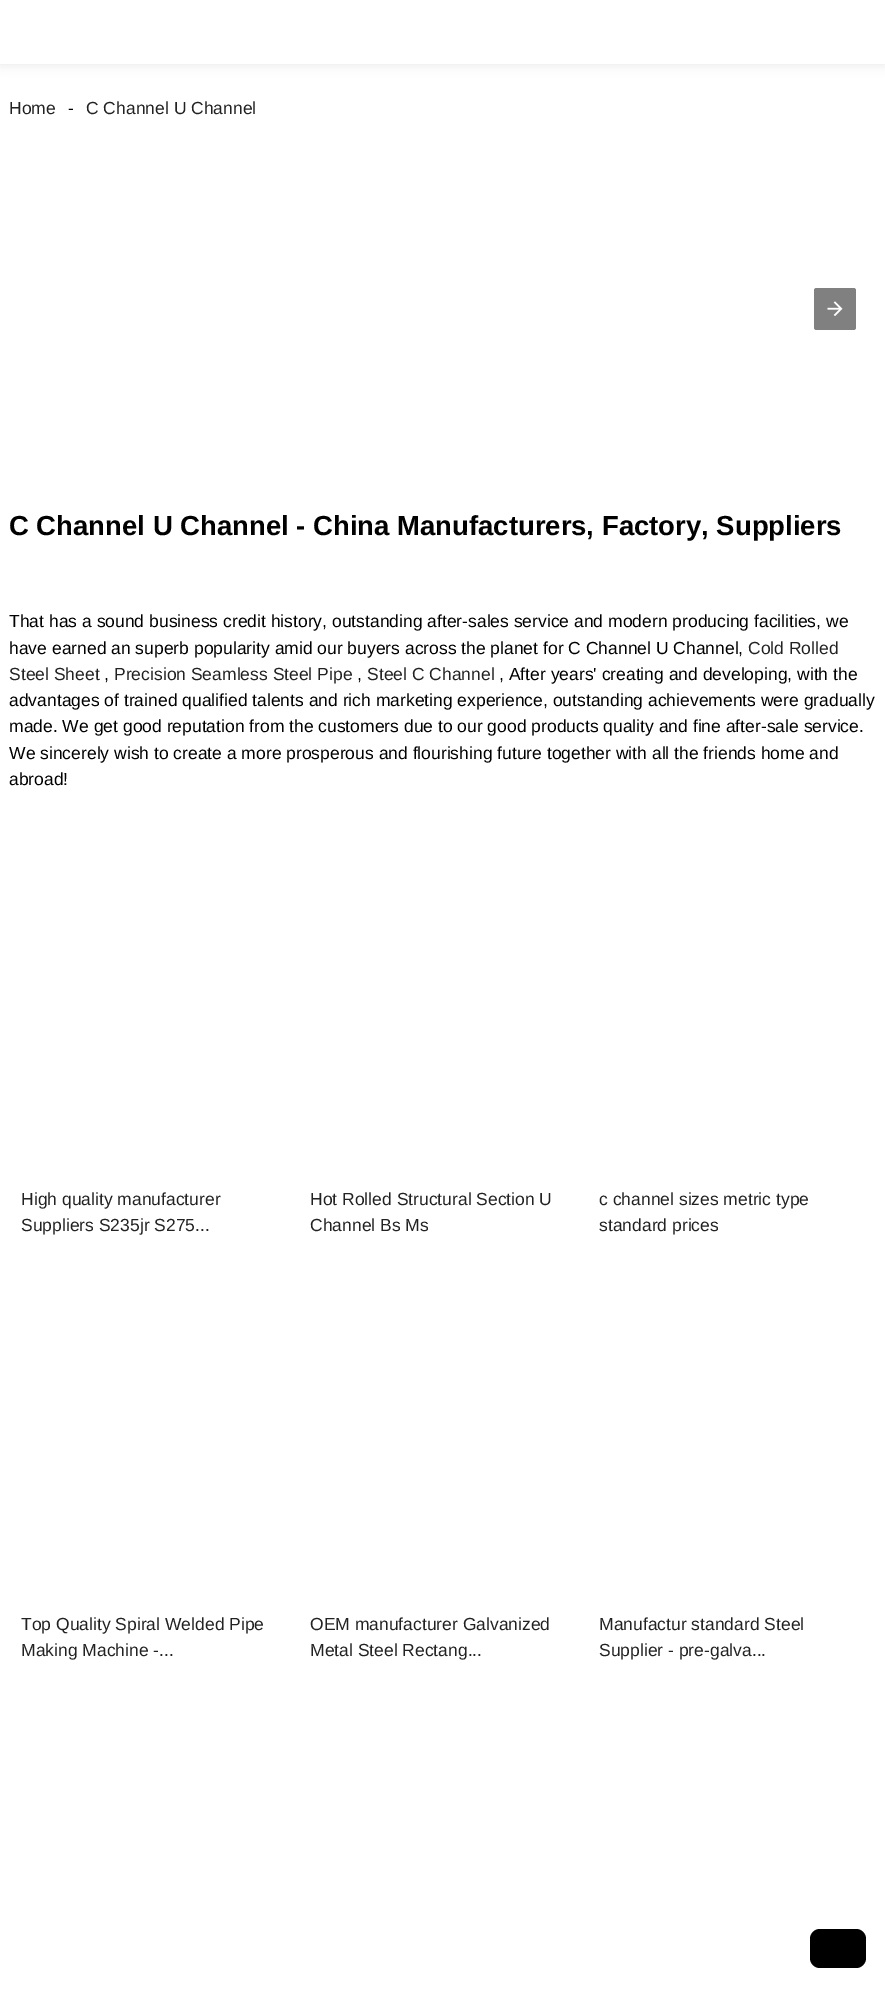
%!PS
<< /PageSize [885 1998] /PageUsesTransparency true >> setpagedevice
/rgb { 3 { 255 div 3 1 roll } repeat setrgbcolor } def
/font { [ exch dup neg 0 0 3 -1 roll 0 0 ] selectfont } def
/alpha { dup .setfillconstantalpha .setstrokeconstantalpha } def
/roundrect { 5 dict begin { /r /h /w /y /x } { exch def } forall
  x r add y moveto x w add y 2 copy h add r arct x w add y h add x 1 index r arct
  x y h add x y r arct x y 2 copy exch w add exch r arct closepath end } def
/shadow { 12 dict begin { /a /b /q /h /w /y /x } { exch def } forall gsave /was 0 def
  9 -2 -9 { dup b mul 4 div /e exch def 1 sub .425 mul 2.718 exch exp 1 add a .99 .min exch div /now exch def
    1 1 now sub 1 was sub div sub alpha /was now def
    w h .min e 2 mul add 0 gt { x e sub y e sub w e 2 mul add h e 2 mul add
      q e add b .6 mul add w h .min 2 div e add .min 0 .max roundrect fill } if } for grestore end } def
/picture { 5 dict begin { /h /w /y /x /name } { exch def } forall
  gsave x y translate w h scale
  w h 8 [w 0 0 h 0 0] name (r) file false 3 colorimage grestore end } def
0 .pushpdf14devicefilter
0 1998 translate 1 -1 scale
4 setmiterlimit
255 255 255 rgb
0 0 885 1998 rectfill
0 0 0 rgb
0 0 885 64 0 6 0.1 shadow
255 255 255 rgb
0 0 885 64 rectfill
128 128 128 rgb
814 288 42 42 2.5 roundrect fill
(img/1.rgb) 827 301 16 15 picture
0 0 0 rgb
810 1929 56 39 10 roundrect fill
/LiberationSans-Regular 17.5 font
34 34 34 rgb
9 114 moveto (Home) show
0 0 0 rgb
68 114 moveto (-) show
34 34 34 rgb
86 114 moveto (C Channel U Channel) show
/LiberationSans-Bold 27.5 font
0 0 0 rgb
9 535 moveto (C Channel U Channel - China Manufacturers, Factory, Suppliers) show
/LiberationSans-Regular 17.5 font
9 627 moveto (That has a sound business credit history, outstanding after-sales service and modern producing facilities, we) show
9 654 moveto (have earned an superb popularity amid our buyers across the planet for C Channel U Channel,) show
34 34 34 rgb
748 654 moveto (Cold Rolled) show
9 680 moveto (Steel Sheet) show
0 0 0 rgb
104 680 moveto (,) show
34 34 34 rgb
114 680 moveto (Precision Seamless Steel Pipe) show
0 0 0 rgb
357 680 moveto (,) show
34 34 34 rgb
367 680 moveto (Steel C Channel) show
0 0 0 rgb
[
  [(, After years' creating and developing, with the) 499 680]
  [(advantages of trained qualified talents and rich marketing experience, outstanding achievements were gradually) 9 706]
  [(made. We get good reputation from the customers due to our good products quality and fine after-sale service.) 9 732]
  [(We sincerely wish to create a more prosperous and flourishing future together with all the friends home and) 9 759]
  [(abroad!) 9 785]
] { aload pop moveto show } forall
34 34 34 rgb
[
  [(High quality manufacturer) 21 1205]
  [(Suppliers S235jr S275...) 21 1231]
  [(Hot Rolled Structural Section U) 310 1205]
  [(Channel Bs Ms) 310 1231]
  [(c channel sizes metric type) 599 1205]
  [(standard prices) 599 1231]
  [(Top Quality Spiral Welded Pipe) 21 1630]
  [(Making Machine -...) 21 1656]
  [(OEM manufacturer Galvanized) 310 1630]
  [(Metal Steel Rectang...) 310 1656]
  [(Manufactur standard Steel) 599 1630]
  [(Supplier - pre-galva...) 599 1656]
] { aload pop moveto show } forall
.poppdf14devicefilter showpage
